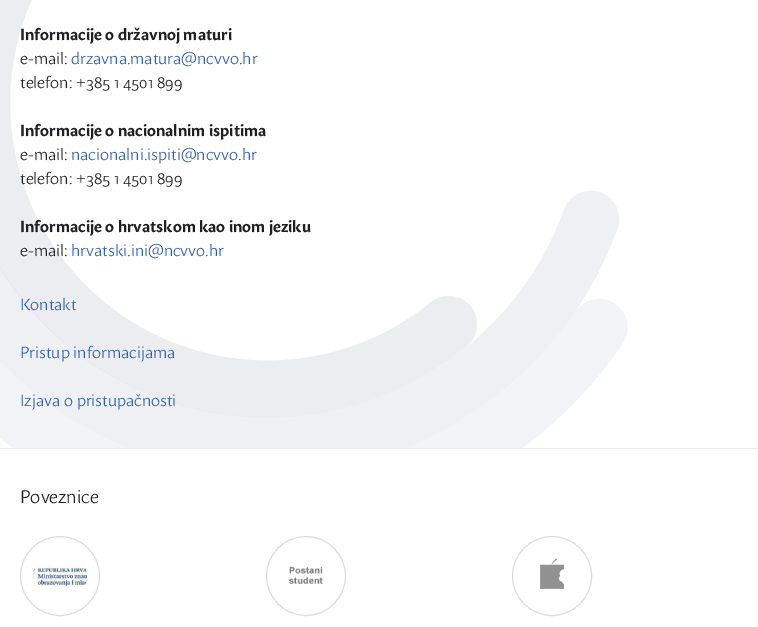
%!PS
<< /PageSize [758 627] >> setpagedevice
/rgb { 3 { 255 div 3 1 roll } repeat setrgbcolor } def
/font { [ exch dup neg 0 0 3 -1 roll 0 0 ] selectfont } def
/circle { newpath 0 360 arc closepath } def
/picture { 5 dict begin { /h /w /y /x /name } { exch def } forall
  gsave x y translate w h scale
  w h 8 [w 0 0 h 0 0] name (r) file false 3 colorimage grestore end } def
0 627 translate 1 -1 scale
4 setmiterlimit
255 255 255 rgb
0 0 758 627 rectfill
235 235 235 rgb
0 448 758 1 rectfill
(img/1.rgb) 0 0 628 448 picture
221 221 221 rgb
60 576 39.5 circle stroke
(img/2.rgb) 33 565 54 22 picture
306 576 39.5 circle stroke
(img/3.rgb) 289 566 34 18 picture
552 576 39.5 circle stroke
(img/4.rgb) 540 558 24 31 picture
/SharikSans-Bold 16 font
32 32 36 rgb
20 40 moveto (Informacije o državnoj maturi) show
/SharikSans-Light 16 font
20 64 moveto (e-mail:) show
46 93 172 rgb
71 64 moveto (drzavna.matura@ncvvo.hr) show
32 32 36 rgb
20 88 moveto (telefon: +385 1 4501 899) show
/SharikSans-Bold 16 font
20 136 moveto (Informacije o nacionalnim ispitima) show
/SharikSans-Light 16 font
20 160 moveto (e-mail:) show
46 93 172 rgb
71 160 moveto (nacionalni.ispiti@ncvvo.hr) show
32 32 36 rgb
20 184 moveto (telefon: +385 1 4501 899) show
/SharikSans-Bold 16 font
20 232 moveto (Informacije o hrvatskom kao inom jeziku) show
/SharikSans-Light 16 font
20 256 moveto (e-mail:) show
46 93 172 rgb
[
  [(hrvatski.ini@ncvvo.hr) 71 256]
  [(Kontakt) 20 310]
  [(Pristup informacijama) 20 358]
  [(Izjava o pristupačnosti) 20 406]
] { aload pop moveto show } forall
/SharikSans-Light 18 font
32 32 36 rgb
20 503 moveto (Poveznice) show
showpage
